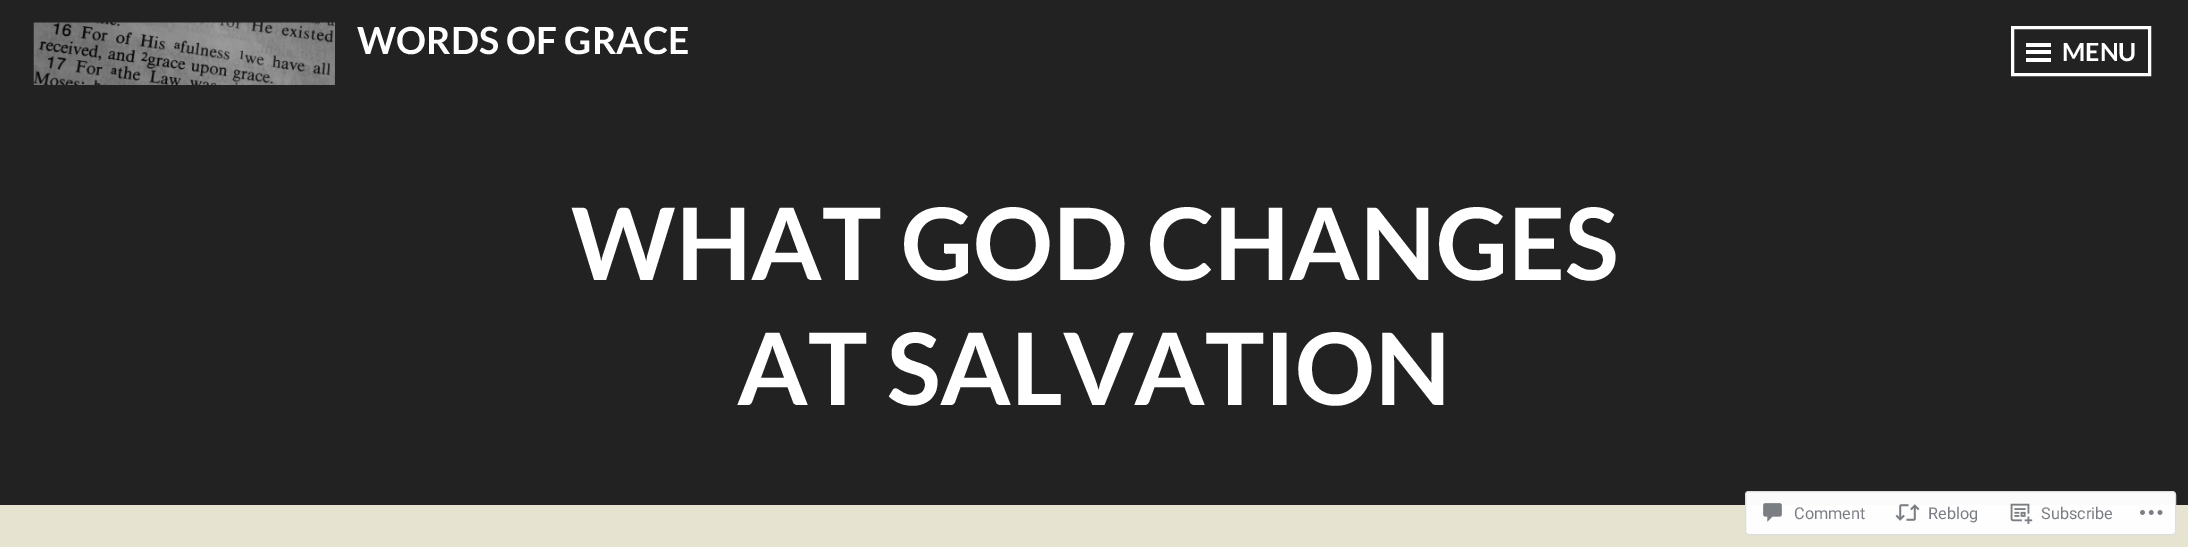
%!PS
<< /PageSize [2188 547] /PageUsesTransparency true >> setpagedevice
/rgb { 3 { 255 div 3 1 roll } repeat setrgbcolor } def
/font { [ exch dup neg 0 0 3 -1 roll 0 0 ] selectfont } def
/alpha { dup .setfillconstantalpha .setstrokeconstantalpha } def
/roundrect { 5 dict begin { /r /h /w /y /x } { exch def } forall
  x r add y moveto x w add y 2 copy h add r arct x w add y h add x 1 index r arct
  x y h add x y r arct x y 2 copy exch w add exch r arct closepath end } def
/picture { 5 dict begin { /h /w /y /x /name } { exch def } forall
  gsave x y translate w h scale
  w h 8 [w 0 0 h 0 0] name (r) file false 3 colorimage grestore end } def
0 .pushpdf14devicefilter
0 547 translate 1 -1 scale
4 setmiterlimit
230 228 208 rgb
0 0 2188 547 rectfill
34 34 34 rgb
0 0 2188 505 rectfill
(img/1.rgb) 33 22 302 63 picture
255 255 255 rgb
3 setlinewidth
2012.5 27.5 137 47 rectstroke
[
  [2026 50 25 4 255 255 255]
  [2026 43 25 4 255 255 255]
  [2026 58 25 4 255 255 255]
] { aload pop rgb rectfill } forall
0.98 alpha
1745 491 431 44 4 roundrect fill
220 220 222 rgb
1 setlinewidth
1745.5 491.5 430 43 3.5 roundrect stroke
1 alpha
(img/2.rgb) 1763 503 19 19 picture
(img/3.rgb) 1895 504 25 17 picture
(img/4.rgb) 2010 503 23 22 picture
(img/5.rgb) 2140 510 23 5 picture
/Lato-Bold 37.5 font
255 255 255 rgb
357 54 moveto (WORDS OF GRACE) show
/Lato-Bold 25 font
2062 61 moveto (MENU) show
/Lato-Bold 99.9 font
571 280 moveto (WHAT GOD CHANGES) show
737 405 moveto (AT SALVATION) show
/Roboto-Regular 16.25 font
122 126 132 rgb
[
  [(Comment) 1794 519]
  [(Reblog) 1928 519]
  [(Subscribe) 2041 519]
] { aload pop moveto show } forall
.poppdf14devicefilter showpage
